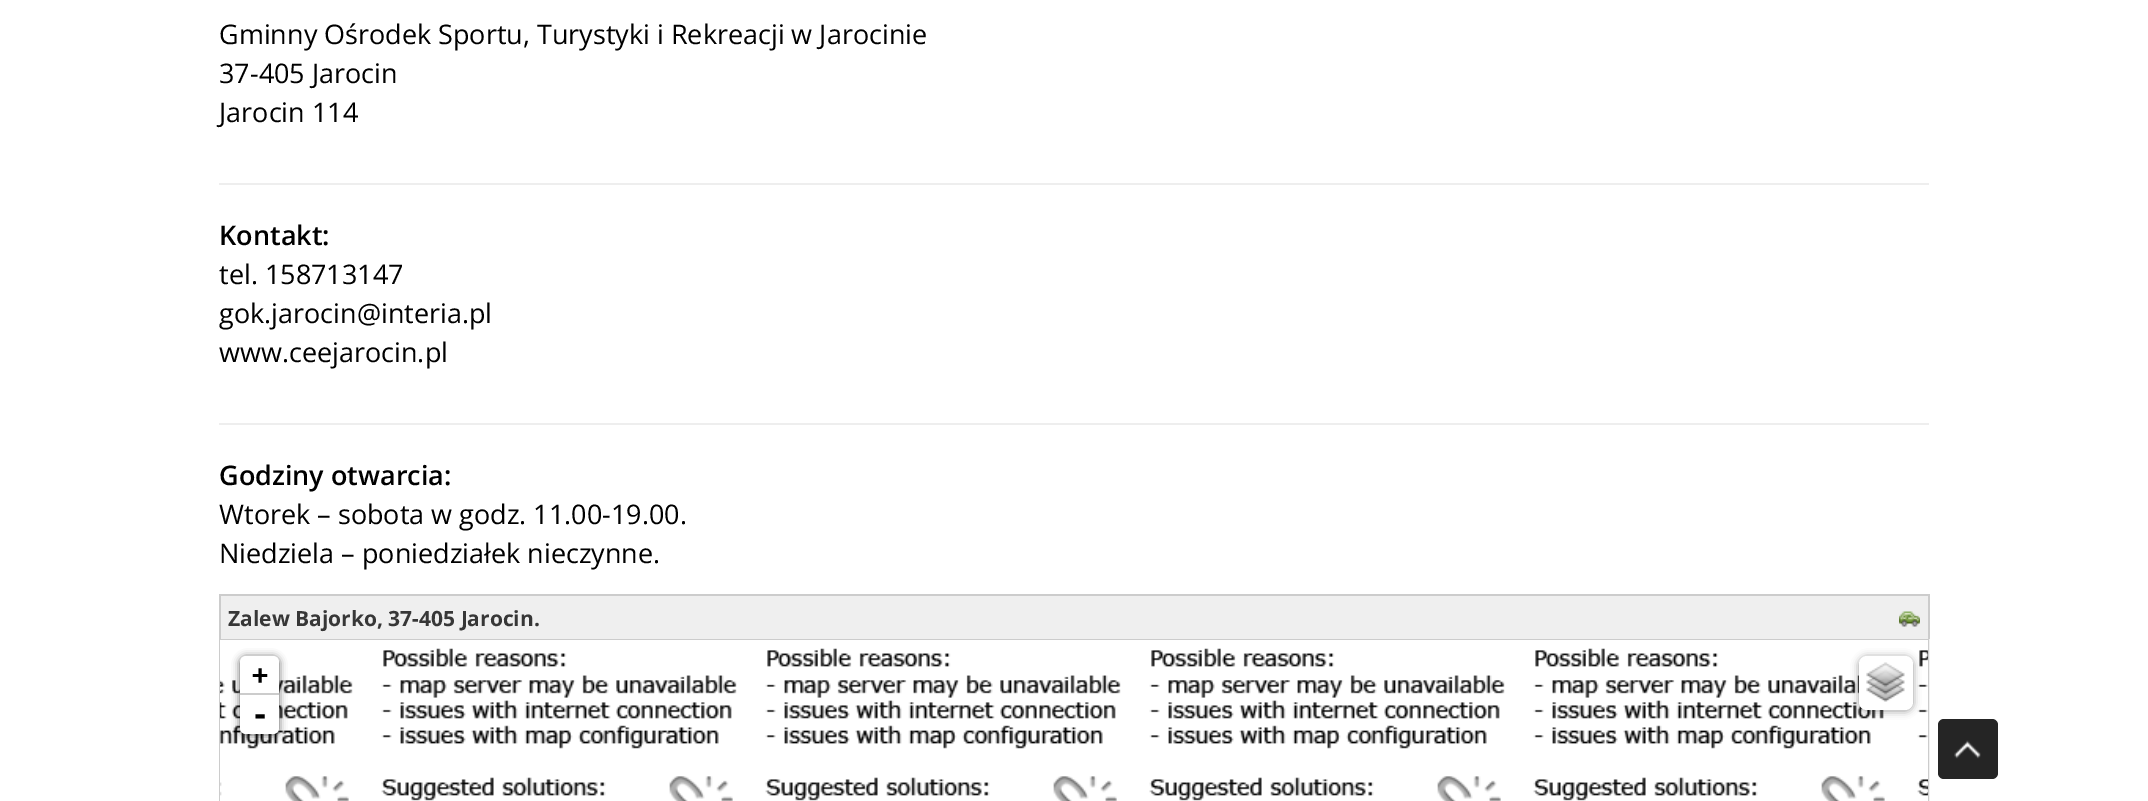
%!PS
<< /PageSize [2148 801] /PageUsesTransparency true >> setpagedevice
/rgb { 3 { 255 div 3 1 roll } repeat setrgbcolor } def
/font { [ exch dup neg 0 0 3 -1 roll 0 0 ] selectfont } def
/alpha { dup .setfillconstantalpha .setstrokeconstantalpha } def
/roundrect { 5 dict begin { /r /h /w /y /x } { exch def } forall
  x r add y moveto x w add y 2 copy h add r arct x w add y h add x 1 index r arct
  x y h add x y r arct x y 2 copy exch w add exch r arct closepath end } def
/shadow { 12 dict begin { /a /b /q /h /w /y /x } { exch def } forall gsave /was 0 def
  9 -2 -9 { dup b mul 4 div /e exch def 1 sub .425 mul 2.718 exch exp 1 add a .99 .min exch div /now exch def
    1 1 now sub 1 was sub div sub alpha /was now def
    w h .min e 2 mul add 0 gt { x e sub y e sub w e 2 mul add h e 2 mul add
      q e add b .6 mul add w h .min 2 div e add .min 0 .max roundrect fill } if } for grestore end } def
/picture { 5 dict begin { /h /w /y /x /name } { exch def } forall
  gsave x y translate w h scale
  w h 8 [w 0 0 h 0 0] name (r) file false 3 colorimage grestore end } def
0 .pushpdf14devicefilter
0 801 translate 1 -1 scale
4 setmiterlimit
255 255 255 rgb
0 0 2148 801 rectfill
[
  [219 183 1710 2 238 238 238]
  [219 423 1710 2 238 238 238]
  [221 596 1707 43 239 239 239]
  [219 594 1710 2 204 204 204]
  [1928 594 2 45 204 204 204]
  [219 594 2 45 204 204 204]
] { aload pop rgb rectfill } forall
(img/1.rgb) 1899 611 21 16 picture
2 setlinewidth
220 640 1708 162 rectstroke
(img/2.rgb) 220 640 146 161 picture
(img/3.rgb) 366 640 384 161 picture
(img/3.rgb) 750 640 384 161 picture
(img/3.rgb) 1134 640 384 161 picture
(img/3.rgb) 1518 640 384 161 picture
(img/4.rgb) 1902 640 26 161 picture
0 0 0 rgb
240 657 39 78 6 4 0.65 shadow
255 255 255 rgb
246 656 moveto 273 656 lineto 276.5 656 279 658.5 279 662 curveto 279 695 lineto 240 695 lineto 240 662 lineto 240 658.5 242.5 656 246 656 curveto closepath fill
204 204 204 rgb
240 693 39 2 rectfill
255 255 255 rgb
240 695 moveto 279 695 lineto 279 728 lineto 279 731.5 276.5 734 273 734 curveto 246 734 lineto 242.5 734 240 731.5 240 728 curveto closepath fill
0 0 0 rgb
1859 657 54 54 8 4 0.4 shadow
255 255 255 rgb
1859 656 54 54 8 roundrect fill
(img/5.rgb) 1866 662 39 40 picture
37 37 37 rgb
1938 719 60 60 6 roundrect fill
(img/6.rgb) 1954 740 27 19 picture
/OpenSans-Regular 27 font
0 0 0 rgb
[
  [(Gminny Ośrodek Sportu, Turystyki i Rekreacji w Jarocinie) 219 44]
  [(37-405 Jarocin) 219 83]
  [(Jarocin 114) 219 122]
] { aload pop moveto show } forall
/OpenSans-SemiBold 27 font
219 245 moveto (Kontakt:) show
/OpenSans-Regular 27 font
[
  [(tel. 158713147) 219 284]
  [(gok.jarocin@interia.pl) 219 323]
  [(www.ceejarocin.pl) 219 362]
] { aload pop moveto show } forall
/OpenSans-SemiBold 27 font
219 485 moveto (Godziny otwarcia:) show
/OpenSans-Regular 27 font
219 524 moveto (Wtorek – sobota w godz. 11.00-19.00.) show
219 563 moveto (Niedziela – poniedziałek nieczynne.) show
/OpenSans-Bold 21 font
55 55 55 rgb
228 626 moveto (Zalew Bajorko, 37-405 Jarocin.) show
/DejaVuSansMono-Bold 27 font
0 0 0 rgb
252 684 moveto (+) show
/DejaVuSansMono-Bold 30 font
251 725 moveto (-) show
.poppdf14devicefilter showpage
